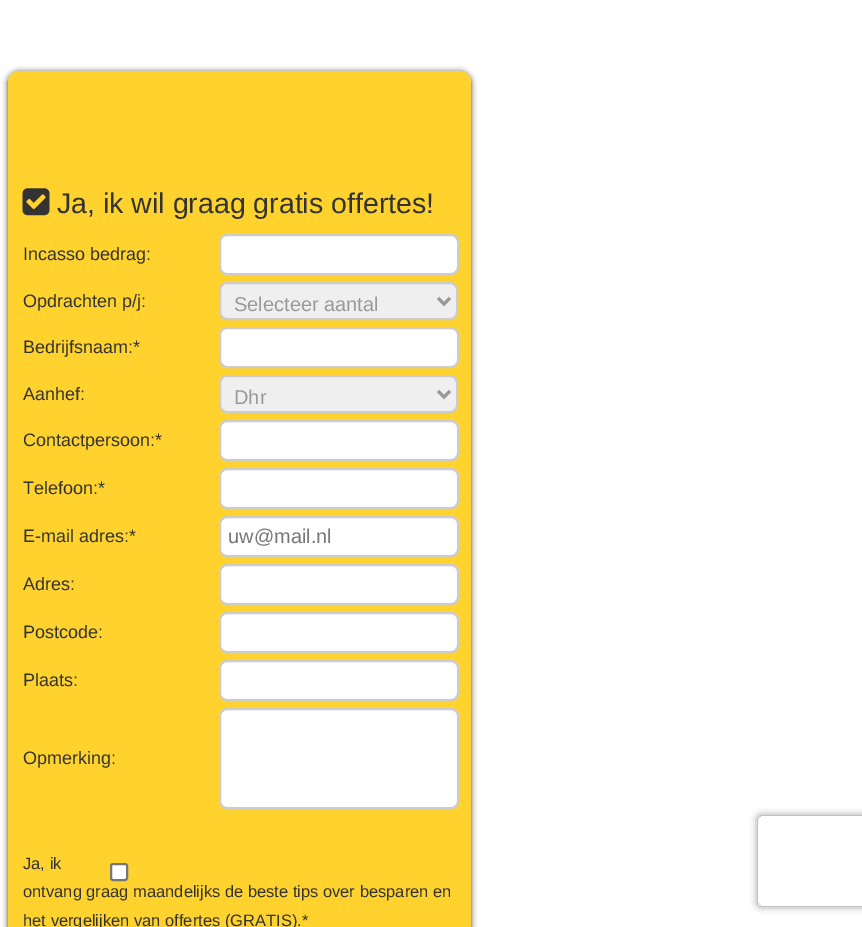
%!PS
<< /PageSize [862 927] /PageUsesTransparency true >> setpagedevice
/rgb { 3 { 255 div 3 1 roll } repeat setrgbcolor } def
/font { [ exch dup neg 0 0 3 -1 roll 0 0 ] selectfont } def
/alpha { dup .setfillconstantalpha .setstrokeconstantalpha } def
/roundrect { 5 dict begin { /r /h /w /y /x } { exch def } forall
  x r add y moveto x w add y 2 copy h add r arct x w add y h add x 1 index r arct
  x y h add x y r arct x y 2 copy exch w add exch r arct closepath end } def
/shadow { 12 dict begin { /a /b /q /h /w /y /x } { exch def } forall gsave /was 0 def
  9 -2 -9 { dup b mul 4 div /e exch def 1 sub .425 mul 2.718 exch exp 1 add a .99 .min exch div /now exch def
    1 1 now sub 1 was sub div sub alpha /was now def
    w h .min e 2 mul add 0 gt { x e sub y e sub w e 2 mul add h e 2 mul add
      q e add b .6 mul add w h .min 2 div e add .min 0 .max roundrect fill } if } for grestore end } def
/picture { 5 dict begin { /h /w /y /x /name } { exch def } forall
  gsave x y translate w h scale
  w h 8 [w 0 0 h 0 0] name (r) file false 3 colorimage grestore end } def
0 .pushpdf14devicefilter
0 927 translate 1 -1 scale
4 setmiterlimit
255 255 255 rgb
0 0 862 927 rectfill
51 51 51 rgb
8 72 463 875 11 3 1 shadow
255 210 46 rgb
8 71 463 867 11 roundrect fill
(img/1.rgb) 22 188 28 28 picture
255 255 255 rgb
220 235 238 39 7 roundrect gsave fill grestore
204 204 204 rgb
2 setlinewidth
stroke
239 239 239 rgb
220 283 237 36 7 roundrect gsave fill grestore
204 204 204 rgb
stroke
153 153 153 rgb
3 setlinewidth
438 298 moveto 444 304 lineto 450 298 lineto stroke
255 255 255 rgb
220 328 238 39 7 roundrect gsave fill grestore
204 204 204 rgb
2 setlinewidth
stroke
239 239 239 rgb
220 376 237 36 7 roundrect gsave fill grestore
204 204 204 rgb
stroke
153 153 153 rgb
3 setlinewidth
438 391 moveto 444 397 lineto 450 391 lineto stroke
255 255 255 rgb
220 421 238 39 7 roundrect gsave fill grestore
204 204 204 rgb
2 setlinewidth
stroke
255 255 255 rgb
220 469 238 39 7 roundrect gsave fill grestore
204 204 204 rgb
stroke
255 255 255 rgb
220 517 238 39 7 roundrect gsave fill grestore
204 204 204 rgb
stroke
255 255 255 rgb
220 565 238 39 7 roundrect gsave fill grestore
204 204 204 rgb
stroke
255 255 255 rgb
220 613 238 39 7 roundrect gsave fill grestore
204 204 204 rgb
stroke
255 255 255 rgb
220 661 238 39 7 roundrect gsave fill grestore
204 204 204 rgb
stroke
255 255 255 rgb
220 709 238 99 7 roundrect gsave fill grestore
204 204 204 rgb
stroke
255 255 255 rgb
111 864 16 16 2 roundrect gsave fill grestore
118 118 118 rgb
stroke
gsave
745 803 moveto 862 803 lineto 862 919 lineto 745 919 lineto closepath 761 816 moveto 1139 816 lineto 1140.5 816 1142 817.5 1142 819 curveto 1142 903 lineto 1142 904.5 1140.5 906 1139 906 curveto 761 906 lineto 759.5 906 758 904.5 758 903 curveto 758 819 lineto 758 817.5 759.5 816 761 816 curveto closepath eoclip newpath
128 128 128 rgb
758 816 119 90 3 4 1 shadow
grestore
/LiberationSans-Regular 28.5 font
51 51 51 rgb
57 213 moveto (Ja, ik wil graag gratis offertes!) show
/LiberationSans-Regular 18 font
23 260 moveto (Incasso bedrag:) show
23 307 moveto (Opdrachten p/j:) show
/LiberationSans-Regular 20 font
153 153 153 rgb
234 311 moveto (Selecteer aantal) show
/LiberationSans-Regular 18 font
51 51 51 rgb
23 353 moveto (Bedrijfsnaam:*) show
23 400 moveto (Aanhef:) show
/LiberationSans-Regular 20 font
153 153 153 rgb
234 404 moveto (Dhr) show
/LiberationSans-Regular 18 font
51 51 51 rgb
[
  [(Contactpersoon:*) 23 446]
  [(Telefoon:*) 23 494]
  [(E-mail adres:*) 23 542]
] { aload pop moveto show } forall
/LiberationSans-Regular 20 font
117 117 117 rgb
228 543 moveto (uw@mail.nl) show
/LiberationSans-Regular 18 font
51 51 51 rgb
[
  [(Adres:) 23 590]
  [(Postcode:) 23 638]
  [(Plaats:) 23 686]
  [(Opmerking:) 23 764]
] { aload pop moveto show } forall
/LiberationSans-Regular 16.5 font
[
  [(Ja, ik) 23 869]
  [(ontvang graag maandelijks de beste tips over besparen en) 23 897]
  [(het vergelijken van offertes \(GRATIS\).*) 23 926]
] { aload pop moveto show } forall
.poppdf14devicefilter showpage
